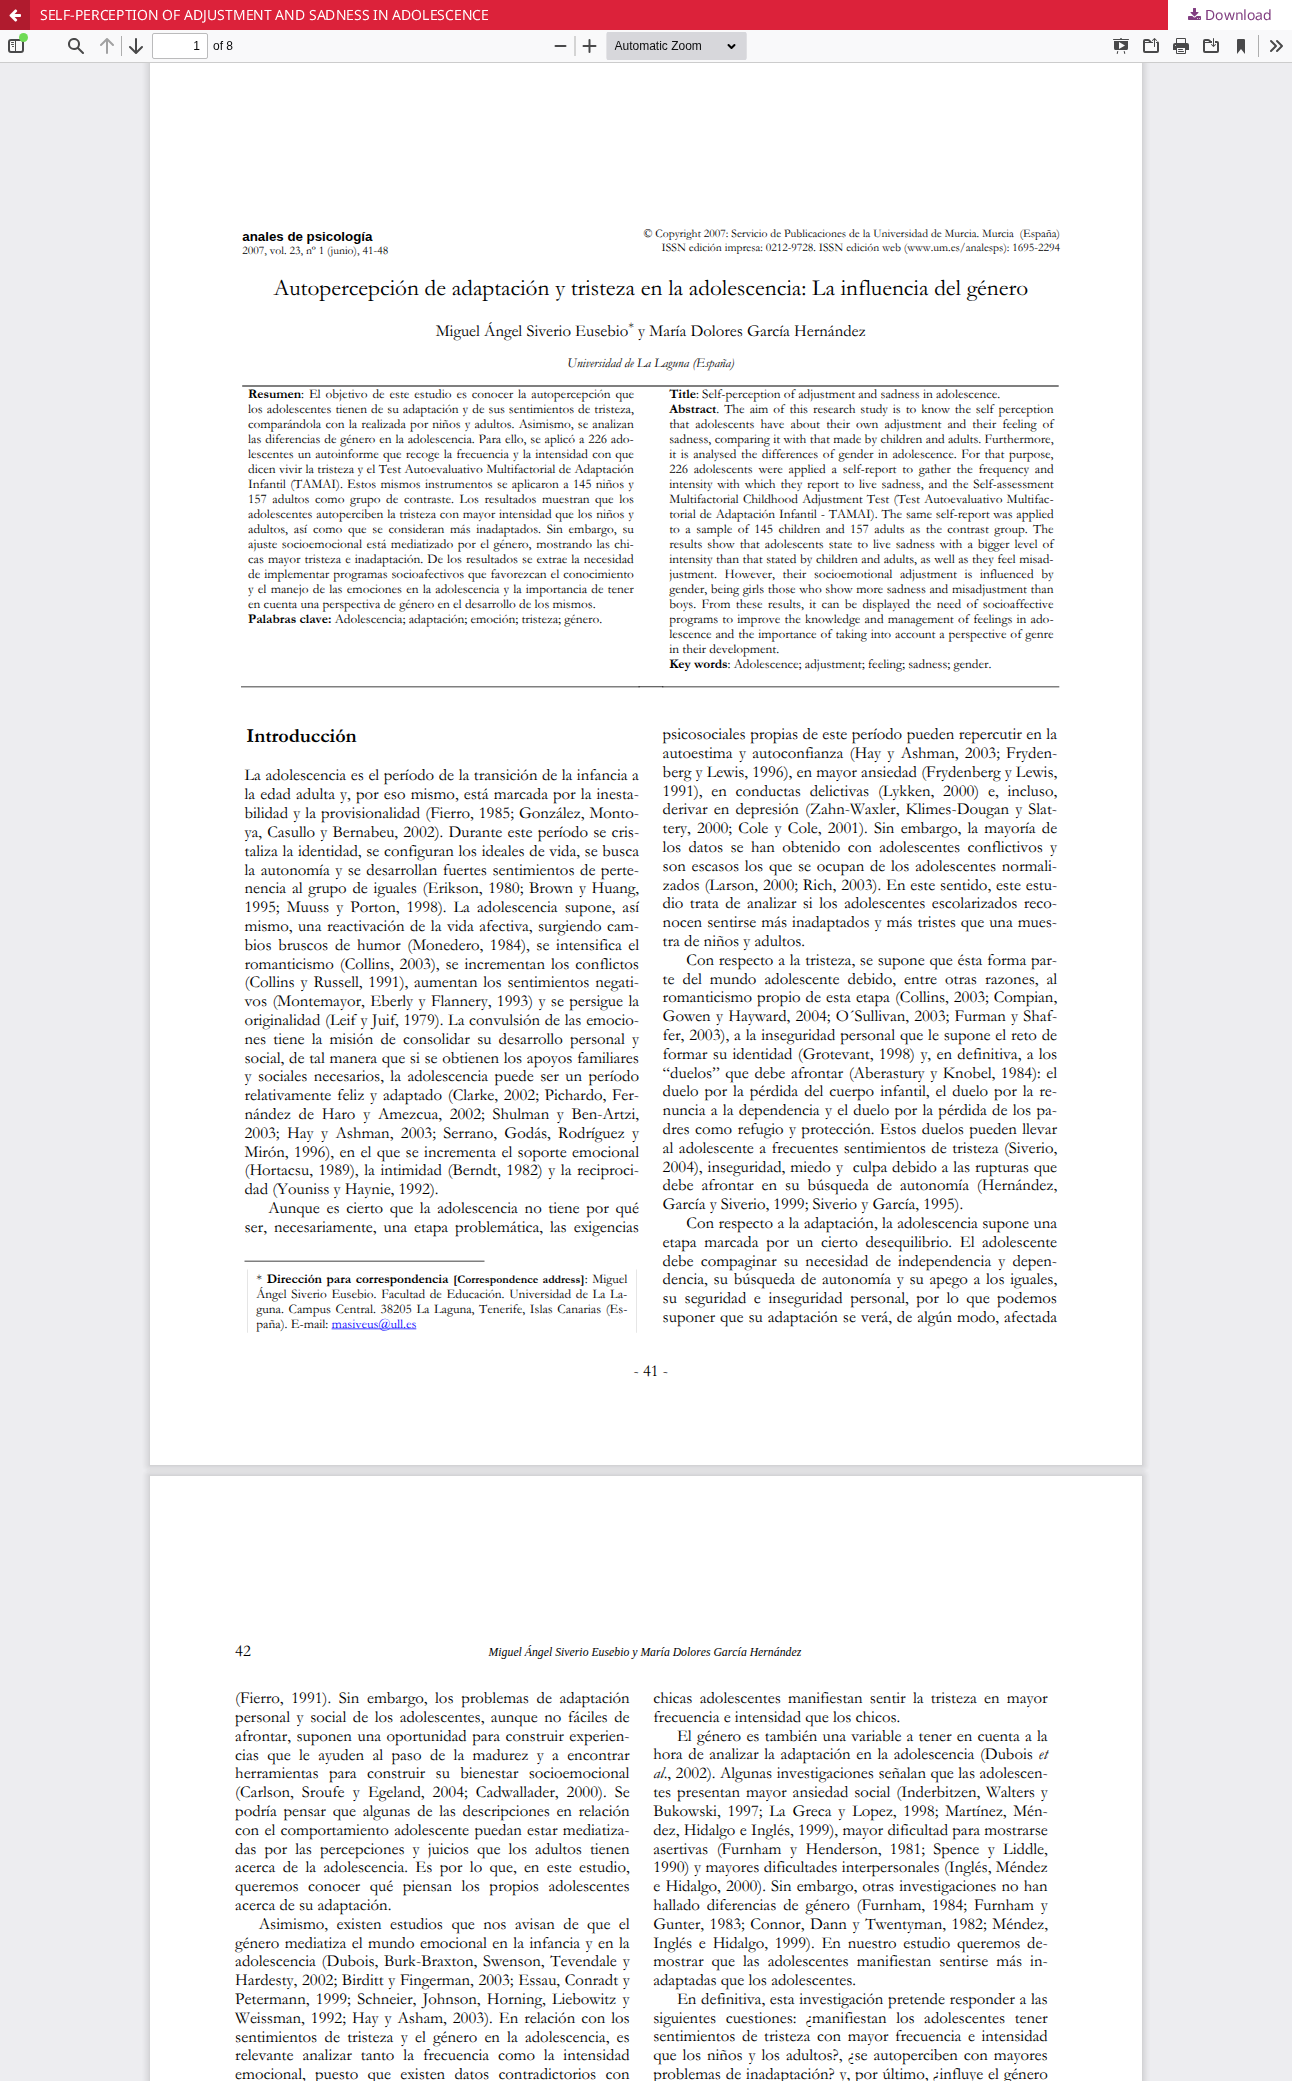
%!PS
<< /PageSize [1292 2081] >> setpagedevice
/rgb { 3 { 255 div 3 1 roll } repeat setrgbcolor } def
/font { [ exch dup neg 0 0 3 -1 roll 0 0 ] selectfont } def
/picture { 5 dict begin { /h /w /y /x /name } { exch def } forall
  gsave x y translate w h scale
  w h 8 [w 0 0 h 0 0] name (r) file false 3 colorimage grestore end } def
0 2081 translate 1 -1 scale
4 setmiterlimit
255 255 255 rgb
0 0 1292 2081 rectfill
220 34 58 rgb
30 0 1138 30 rectfill
176 27 46 rgb
0 0 30 30 rectfill
(img/1.rgb) 9 9 12 13 picture
(img/2.rgb) 1188 8 13 12 picture
(img/3.rgb) 0 30 1292 2051 picture
/NotoSans-Regular 14 font
255 255 255 rgb
40 20 moveto (SELF-PERCEPTION OF ADJUSTMENT AND SADNESS IN ADOLESCENCE) show
129 62 129 rgb
1205 20 moveto (Download) show
showpage
